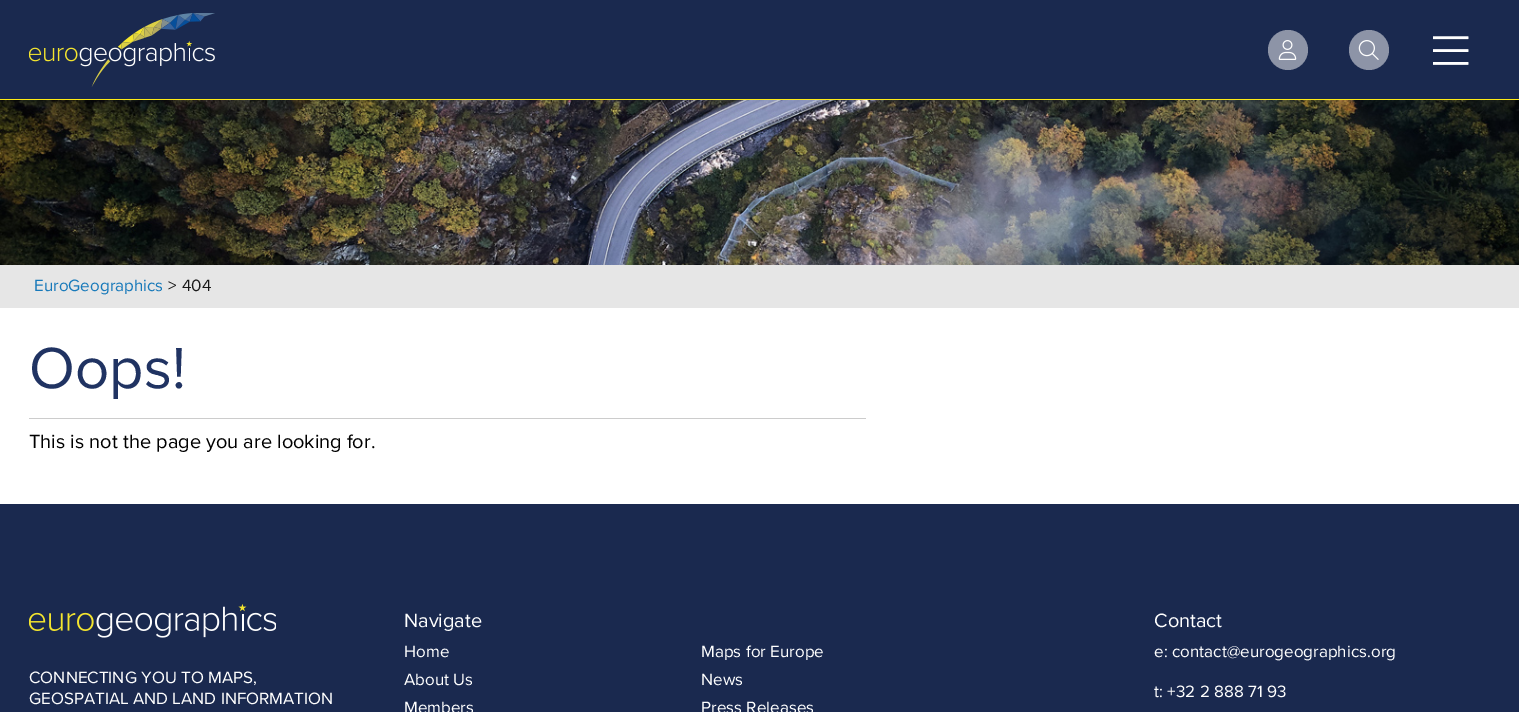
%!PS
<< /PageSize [1519 712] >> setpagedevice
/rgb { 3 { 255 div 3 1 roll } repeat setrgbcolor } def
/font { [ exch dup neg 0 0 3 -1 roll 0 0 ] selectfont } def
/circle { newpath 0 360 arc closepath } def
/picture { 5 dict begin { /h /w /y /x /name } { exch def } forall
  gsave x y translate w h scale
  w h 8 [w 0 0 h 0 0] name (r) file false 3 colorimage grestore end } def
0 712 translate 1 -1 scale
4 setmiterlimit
230 230 230 rgb
0 0 1519 712 rectfill
26 41 79 rgb
0 0 1519 99 rectfill
254 235 23 rgb
0 99 1519 1 rectfill
(img/1.rgb) 29 13 186 74 picture
141 148 167 rgb
1288 50 20 circle fill
(img/2.rgb) 1278 40 19 20 picture
1369 50 20 circle fill
(img/3.rgb) 1358 40 21 20 picture
(img/4.rgb) 1433 36 36 29 picture
(img/5.rgb) 0 100 1519 165 picture
[
  [0 308 1519 196 255 255 255]
  [29 418 837 1 204 204 204]
  [0 504 1519 208 26 41 79]
] { aload pop rgb rectfill } forall
(img/6.rgb) 29 604 247 34 picture
/ProximaNova-Regular 17 font
23 121 186 rgb
34 291 moveto (EuroGeographics) show
26 26 26 rgb
168 291 moveto (>) show
182 291 moveto (404) show
/ProximaNova-Regular 60 font
32 51 98 rgb
29 388 moveto (Oops!) show
/ProximaNova-Regular 20 font
0 0 0 rgb
29 448 moveto (This is not the page you are looking for.) show
/ProximaNova-Regular 17 font
255 255 255 rgb
29 683 moveto (CONNECTING YOU TO MAPS,) show
29 704 moveto (GEOSPATIAL AND LAND INFORMATION) show
/ProximaNova-Regular 20 font
404 627 moveto (Navigate) show
/ProximaNova-Regular 17 font
[
  [(Home) 404 657]
  [(About Us) 404 685]
  [(Members) 404 713]
  [(Maps for Europe) 701 657]
  [(News) 701 685]
  [(Press Releases) 701 713]
] { aload pop moveto show } forall
/ProximaNova-Regular 20 font
1154 627 moveto (Contact) show
/ProximaNova-Regular 17 font
1154 657 moveto (e: contact@eurogeographics.org) show
1154 697 moveto (t: +32 2 888 71 93) show
showpage
